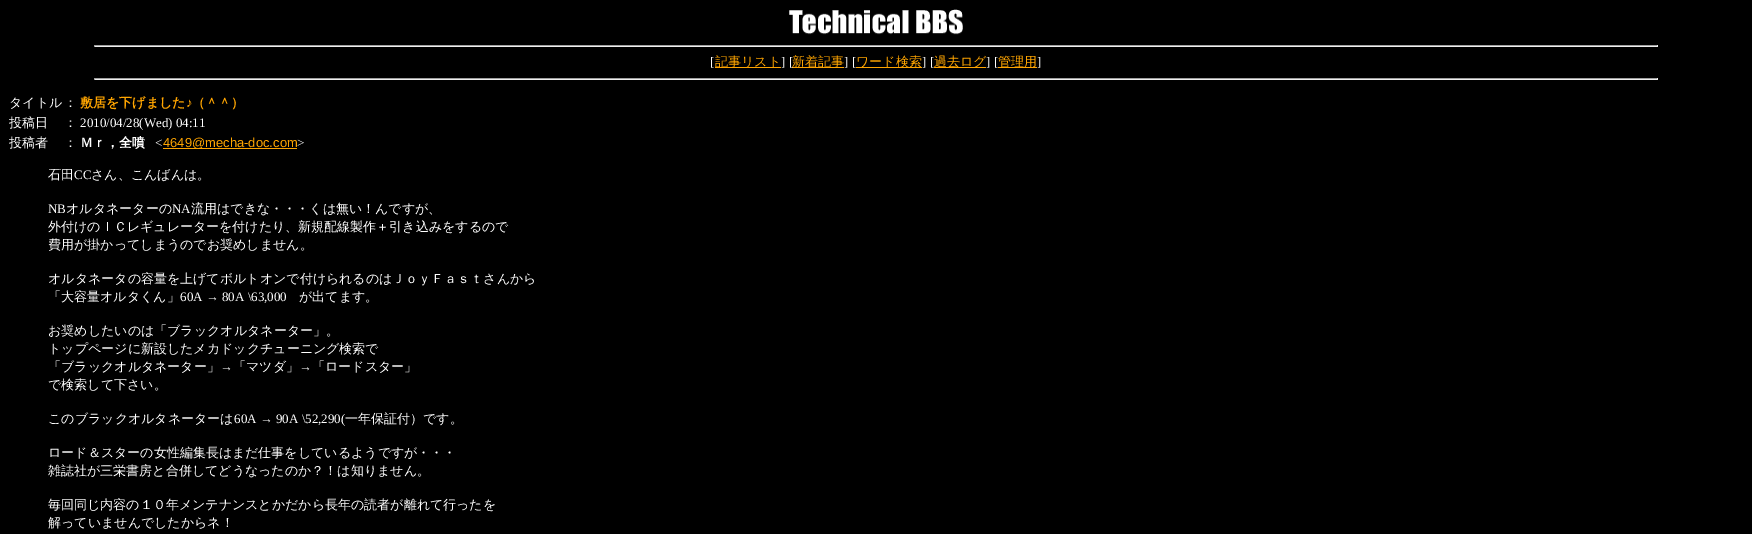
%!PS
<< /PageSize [1752 534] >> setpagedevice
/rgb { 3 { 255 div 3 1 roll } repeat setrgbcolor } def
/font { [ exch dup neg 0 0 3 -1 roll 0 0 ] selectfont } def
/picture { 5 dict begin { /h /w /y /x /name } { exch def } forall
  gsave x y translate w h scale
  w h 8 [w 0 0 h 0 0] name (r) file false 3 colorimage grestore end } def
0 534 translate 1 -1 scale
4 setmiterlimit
0 0 0 rgb
0 0 1752 534 rectfill
(img/1.rgb) 789 9 174 26 picture
[
  [94 45 1564 1 159 159 159]
  [1657 45 1 2 238 238 238]
  [94 46 1564 1 238 238 238]
  [94 45 1 2 159 159 159]
  [715 67 66 1 255 165 0]
  [792 67 52 1 255 165 0]
  [856 67 66 1 255 165 0]
  [934 67 52 1 255 165 0]
  [998 67 39 1 255 165 0]
  [94 78 1564 1 159 159 159]
  [1657 78 1 2 238 238 238]
  [94 79 1564 1 238 238 238]
  [94 78 1 2 159 159 159]
  [163 148 134 1 255 165 0]
] { aload pop rgb rectfill } forall
/LiberationSerif-Regular 13 font
255 255 255 rgb
710 66 moveto ([) show
/WenQuanYiZenHei-Medium 13 font
255 165 0 rgb
715 66 moveto (記事リスト) show
/LiberationSerif-Regular 13 font
255 255 255 rgb
781 66 moveto (] [) show
/WenQuanYiZenHei-Medium 13 font
255 165 0 rgb
792 66 moveto (新着記事) show
/LiberationSerif-Regular 13 font
255 255 255 rgb
844 66 moveto (] [) show
/WenQuanYiZenHei-Medium 13 font
255 165 0 rgb
856 66 moveto (ワード検索) show
/LiberationSerif-Regular 13 font
255 255 255 rgb
922 66 moveto (] [) show
/WenQuanYiZenHei-Medium 13 font
255 165 0 rgb
934 66 moveto (過去ログ) show
/LiberationSerif-Regular 13 font
255 255 255 rgb
986 66 moveto (] [) show
/WenQuanYiZenHei-Medium 13 font
255 165 0 rgb
998 66 moveto (管理用) show
/LiberationSerif-Regular 13 font
255 255 255 rgb
1037 66 moveto (]) show
/WenQuanYiZenHei-Medium 13 font
9 107 moveto (タイトル) show
64 107 moveto (：) show
/WenQuanYiZenHei-Bold 13 font
255 165 0 rgb
80 107 moveto (敷居を下げました) show
/LiberationSerif-Bold 13 font
186 107 moveto (♪) show
/WenQuanYiZenHei-Bold 13 font
192 107 moveto (（＾＾）) show
/WenQuanYiZenHei-Medium 13 font
255 255 255 rgb
9 127 moveto (投稿日) show
64 127 moveto (：) show
/LiberationSerif-Regular 13 font
80 127 moveto (2010/04/28\(Wed\) 04:11) show
/WenQuanYiZenHei-Medium 13 font
9 147 moveto (投稿者) show
64 147 moveto (：) show
/WenQuanYiZenHei-Bold 13 font
80 147 moveto (Ｍｒ，全噴) show
/LiberationSerif-Regular 13 font
155 147 moveto (<) show
/LiberationSans-Regular 13 font
255 165 0 rgb
163 147 moveto (4649@mecha-doc.com) show
/LiberationSerif-Regular 13 font
255 255 255 rgb
297 147 moveto (>) show
/WenQuanYiZenHei-Medium 13 font
48 179 moveto (石田) show
/LiberationSerif-Regular 13 font
74 179 moveto (CC) show
/WenQuanYiZenHei-Medium 13 font
91 179 moveto (さん、こんばんは。) show
/LiberationSerif-Regular 13 font
48 213 moveto (NB) show
/WenQuanYiZenHei-Medium 13 font
66 213 moveto (オルタネーターの) show
/LiberationSerif-Regular 13 font
172 213 moveto (NA) show
/WenQuanYiZenHei-Medium 13 font
[
  [(流用はできな・・・くは無い！んですが、) 191 213]
  [(外付けのＩＣレギュレーターを付けたり、新規配線製作＋引き込みをするので) 48 231]
  [(費用が掛かってしまうのでお奨めしません。) 48 249]
  [(オルタネータの容量を上げてボルトオンで付けられるのはＪｏｙＦａｓｔさんから) 48 283]
  [(「大容量オルタくん」) 48 301]
] { aload pop moveto show } forall
/LiberationSerif-Regular 13 font
180 301 moveto (60A → 80A \\63,000) show
/WenQuanYiZenHei-Medium 13 font
[
  [(が出てます。) 299 301]
  [(お奨めしたいのは「ブラックオルタネーター」。) 48 335]
  [(トップページに新設したメカドックチューニング検索で) 48 353]
  [(「ブラックオルタネーター」) 48 371]
] { aload pop moveto show } forall
/LiberationSerif-Regular 13 font
220 371 moveto (→) show
/WenQuanYiZenHei-Medium 13 font
233 371 moveto (「マツダ」) show
/LiberationSerif-Regular 13 font
299 371 moveto (→) show
/WenQuanYiZenHei-Medium 13 font
[
  [(「ロードスター」) 312 371]
  [(で検索して下さい。) 48 389]
  [(このブラックオルタネーターは) 48 423]
] { aload pop moveto show } forall
/LiberationSerif-Regular 13 font
234 423 moveto (60A → 90A \\52,290\() show
/WenQuanYiZenHei-Medium 13 font
[
  [(一年保証付）です。) 345 423]
  [(ロード＆スターの女性編集長はまだ仕事をしているようですが・・・) 48 457]
  [(雑誌社が三栄書房と合併してどうなったのか？！は知りません。) 48 475]
  [(毎回同じ内容の１０年メンテナンスとかだから長年の読者が離れて行ったを) 48 509]
  [(解っていませんでしたからネ！) 48 527]
] { aload pop moveto show } forall
showpage
